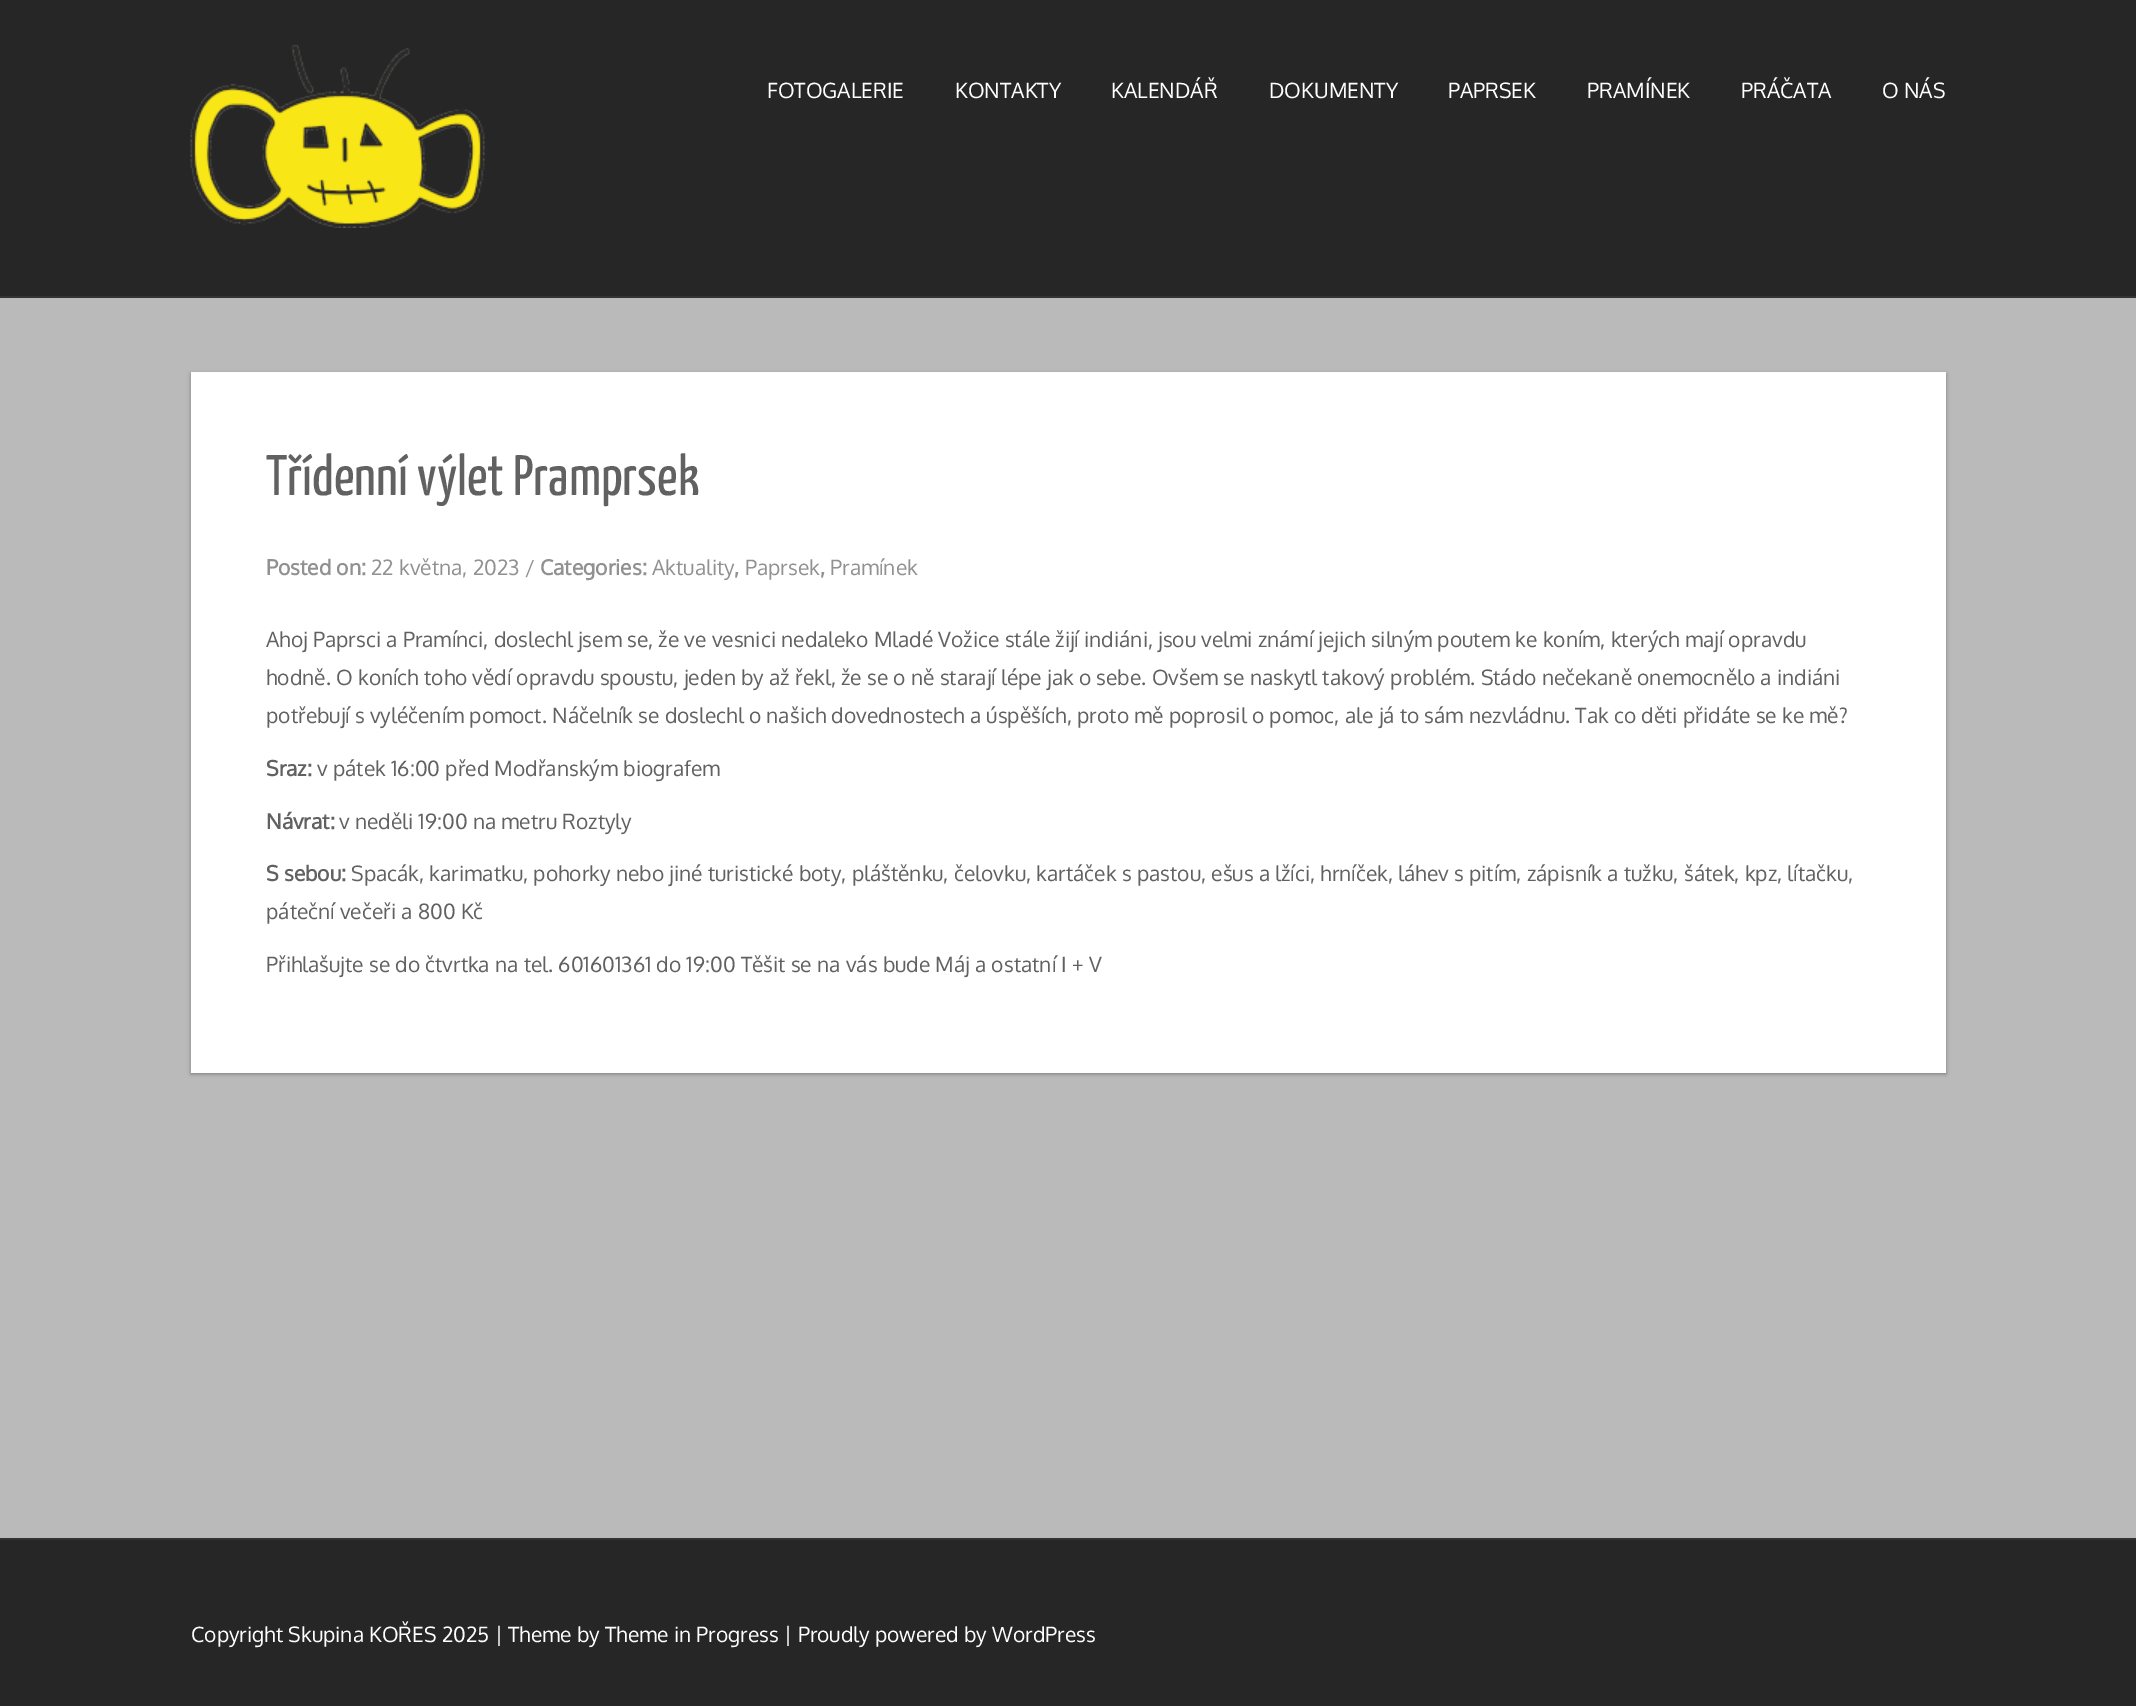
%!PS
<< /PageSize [2136 1706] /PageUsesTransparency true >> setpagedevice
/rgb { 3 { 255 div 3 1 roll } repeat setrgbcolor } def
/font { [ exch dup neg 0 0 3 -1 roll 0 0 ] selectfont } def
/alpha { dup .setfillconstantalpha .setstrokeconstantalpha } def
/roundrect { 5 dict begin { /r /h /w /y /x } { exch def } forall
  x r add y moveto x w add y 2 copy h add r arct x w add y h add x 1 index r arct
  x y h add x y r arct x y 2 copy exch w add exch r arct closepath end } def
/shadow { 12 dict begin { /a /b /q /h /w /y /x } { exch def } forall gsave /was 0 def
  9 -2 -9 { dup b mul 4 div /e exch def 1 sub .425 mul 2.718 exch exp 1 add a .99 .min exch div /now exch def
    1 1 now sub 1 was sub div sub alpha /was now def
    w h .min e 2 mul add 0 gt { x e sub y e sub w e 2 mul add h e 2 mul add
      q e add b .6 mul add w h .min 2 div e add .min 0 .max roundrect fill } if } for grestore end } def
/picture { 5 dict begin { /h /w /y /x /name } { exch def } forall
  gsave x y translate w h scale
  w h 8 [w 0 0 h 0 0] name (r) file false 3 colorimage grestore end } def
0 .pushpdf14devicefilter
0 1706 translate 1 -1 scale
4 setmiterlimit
186 186 186 rgb
0 0 2136 1706 rectfill
38 38 38 rgb
0 0 2136 296 rectfill
51 51 51 rgb
0 296 2136 2 rectfill
(img/1.rgb) 190 45 295 183 picture
34 25 25 rgb
191 374 1755 700 0 2 0.4 shadow
[
  [191 372 1755 701 255 255 255]
  [0 1540 2136 166 38 38 38]
  [0 1538 2136 2 51 51 51]
] { aload pop rgb rectfill } forall
/Oxygen-Regular 21 font
255 255 255 rgb
[
  [(FOTOGALERIE) 767 98]
  [(KONTAKTY) 955 98]
  [(KALENDÁŘ) 1111 98]
  [(DOKUMENTY) 1269 98]
  [(PAPRSEK) 1448 98]
  [(PRAMÍNEK) 1587 98]
  [(PRÁČATA) 1741 98]
  [(O NÁS) 1882 98]
] { aload pop moveto show } forall
/YanoneKaffeesatz-ExtraLight 57 font
97 97 97 rgb
266 495 moveto (Třídenní výlet Pramprsek) show
/Oxygen-Bold 21 font
145 145 145 rgb
266 575 moveto (Posted on:) show
/Oxygen-Regular 21 font
371 575 moveto (22 května, 2023 /) show
/Oxygen-Bold 21 font
540 575 moveto (Categories:) show
/Oxygen-Regular 21 font
652 575 moveto (Aktuality) show
/Oxygen-Bold 21 font
734 575 moveto (,) show
/Oxygen-Regular 21 font
745 575 moveto (Paprsek) show
/Oxygen-Bold 21 font
820 575 moveto (,) show
/Oxygen-Regular 21 font
830 575 moveto (Pramínek) show
97 97 97 rgb
[
  [(Ahoj Paprsci a Pramínci, doslechl jsem se, že ve vesnici nedaleko Mladé Vožice stále žijí indiáni, jsou velmi známí jejich silným poutem ke koním, kterých mají opravdu) 266 647]
  [(hodně. O koních toho vědí opravdu spoustu, jeden by až řekl, že se o ně starají lépe jak o sebe. Ovšem se naskytl takový problém. Stádo nečekaně onemocnělo a indiáni) 266 685]
  [(potřebují s vyléčením pomoct. Náčelník se doslechl o našich dovednostech a úspěších, proto mě poprosil o pomoc, ale já to sám nezvládnu. Tak co děti přidáte se ke mě?) 266 723]
] { aload pop moveto show } forall
/Oxygen-Bold 21 font
266 776 moveto (Sraz:) show
/Oxygen-Regular 21 font
317 776 moveto (v pátek 16:00 před Modřanským biografem) show
/Oxygen-Bold 21 font
266 829 moveto (Návrat:) show
/Oxygen-Regular 21 font
339 829 moveto (v neděli 19:00 na metru Roztyly) show
/Oxygen-Bold 21 font
266 881 moveto (S sebou:) show
/Oxygen-Regular 21 font
[
  [(Spacák, karimatku, pohorky nebo jiné turistické boty, pláštěnku, čelovku, kartáček s pastou, ešus a lžíci, hrníček, láhev s pitím, zápisník a tužku, šátek, kpz, lítačku,) 351 881]
  [(páteční večeři a 800 Kč) 266 919]
  [(Přihlašujte se do čtvrtka na tel. 601601361 do 19:00 Těšit se na vás bude Máj a ostatní I + V) 266 972]
] { aload pop moveto show } forall
255 255 255 rgb
191 1642 moveto (Copyright Skupina KOŘES 2025 | Theme by Theme in Progress | Proudly powered by WordPress) show
.poppdf14devicefilter showpage
